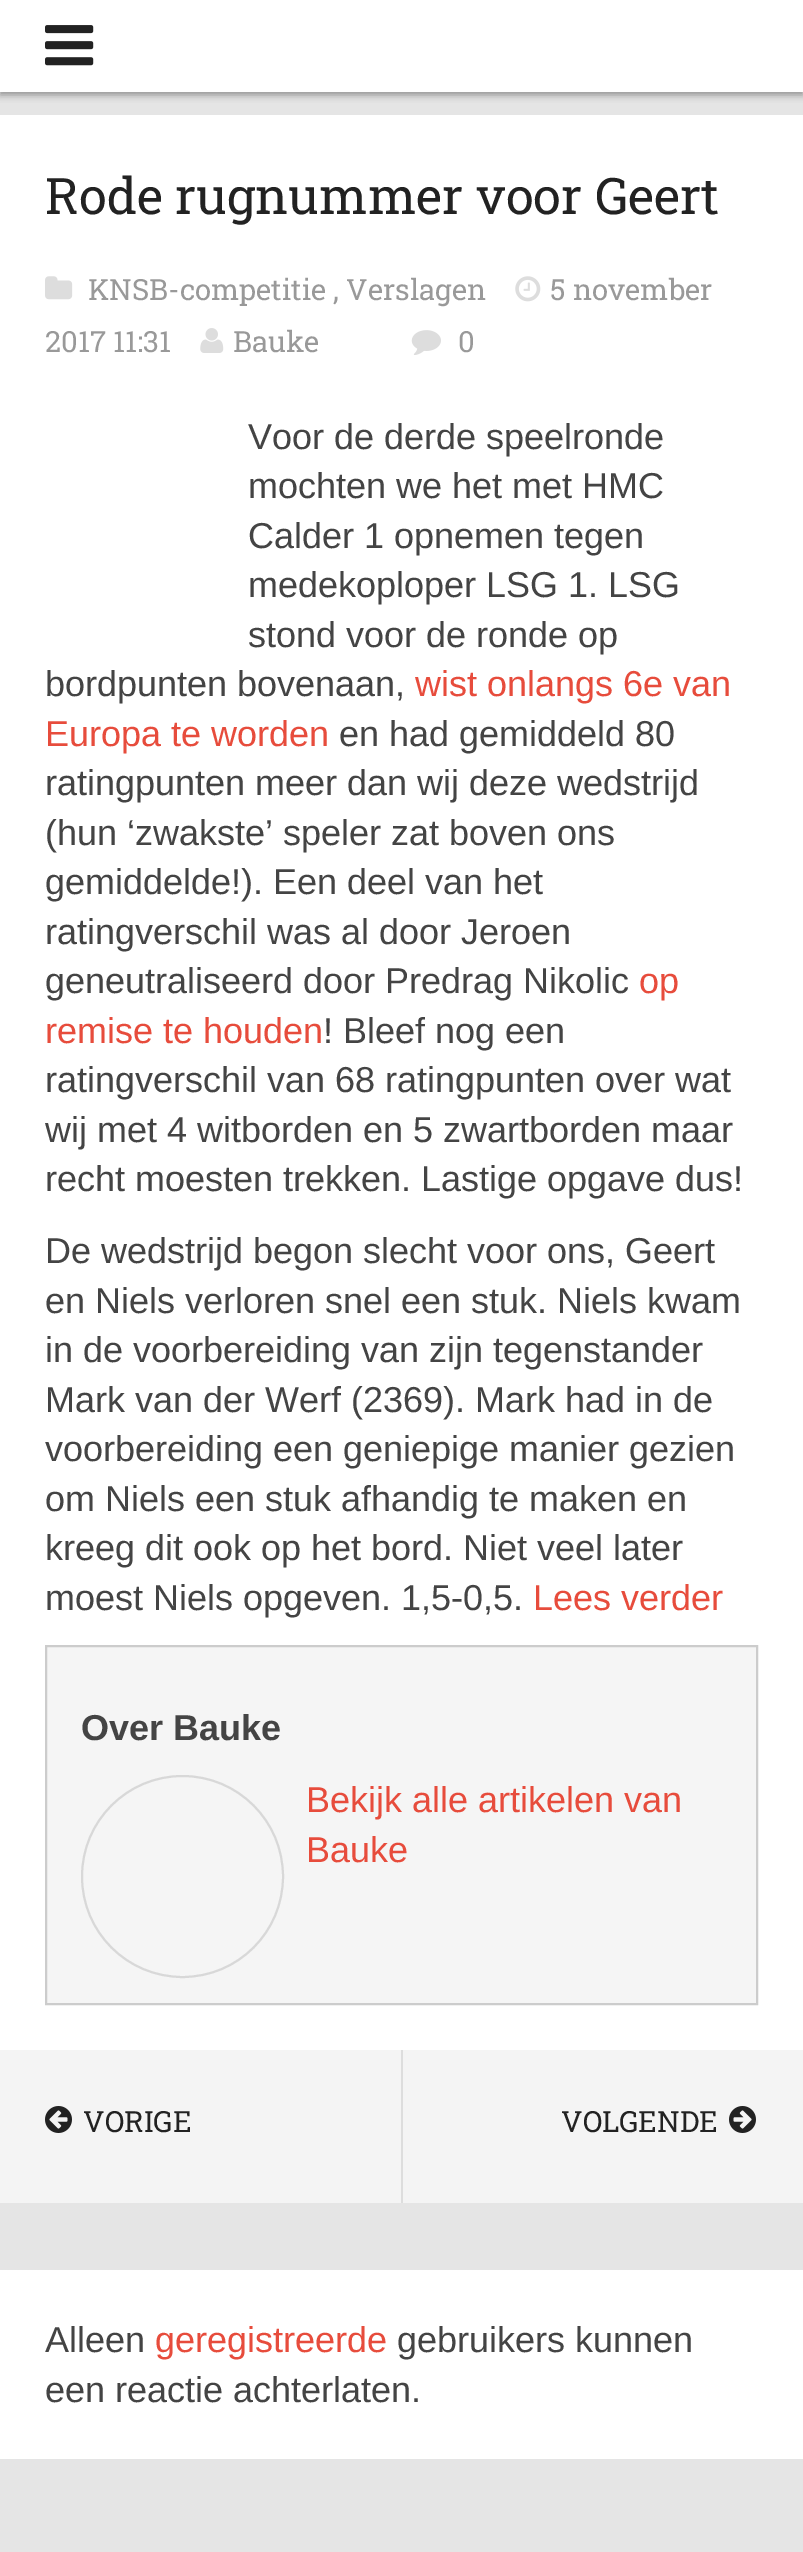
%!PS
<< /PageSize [803 2552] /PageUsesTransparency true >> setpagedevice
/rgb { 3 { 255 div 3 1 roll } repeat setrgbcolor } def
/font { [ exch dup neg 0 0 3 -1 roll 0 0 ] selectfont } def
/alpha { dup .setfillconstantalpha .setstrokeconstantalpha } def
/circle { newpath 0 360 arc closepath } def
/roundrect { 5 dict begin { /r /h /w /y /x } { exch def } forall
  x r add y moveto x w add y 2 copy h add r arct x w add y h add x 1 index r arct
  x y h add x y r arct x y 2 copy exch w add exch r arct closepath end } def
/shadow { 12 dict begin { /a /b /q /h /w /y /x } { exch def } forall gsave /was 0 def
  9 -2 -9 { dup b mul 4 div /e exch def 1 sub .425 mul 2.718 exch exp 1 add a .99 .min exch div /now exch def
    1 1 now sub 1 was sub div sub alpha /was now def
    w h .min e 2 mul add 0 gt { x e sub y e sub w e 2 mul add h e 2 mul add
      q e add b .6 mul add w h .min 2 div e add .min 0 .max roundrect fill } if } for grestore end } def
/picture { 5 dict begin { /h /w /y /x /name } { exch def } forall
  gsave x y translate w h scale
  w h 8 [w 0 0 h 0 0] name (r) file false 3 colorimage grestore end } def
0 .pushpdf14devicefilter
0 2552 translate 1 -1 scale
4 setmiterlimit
229 229 229 rgb
0 0 803 2552 rectfill
0 0 0 rgb
0 2 803 93 0 3.5 0.35 shadow
255 255 255 rgb
0 0 803 92 rectfill
(img/1.rgb) 45 25 49 41 picture
0 115 803 1935 rectfill
(img/2.rgb) 45 276 28 24 picture
(img/3.rgb) 515 276 26 26 picture
(img/4.rgb) 200 328 24 25 picture
(img/5.rgb) 411 330 30 25 picture
245 245 245 rgb
46 1646 moveto 757 1646 lineto 757 2004 lineto 46 2004 lineto closepath gsave fill grestore
204 204 204 rgb
2 setlinewidth
stroke
216 216 216 rgb
182.5 1876.5 100.5 circle stroke
244 244 244 rgb
0 2050 803 153 rectfill
(img/6.rgb) 45 2106 27 27 picture
221 221 221 rgb
401 2050 2 153 rectfill
(img/7.rgb) 729 2106 27 27 picture
255 255 255 rgb
0 2270 803 189 rectfill
/RobotoSlab-Regular 50.4 font
34 34 34 rgb
45 214 moveto (Rode rugnummer voor Geert) show
/RobotoSlab-Regular 29.25 font
153 153 153 rgb
[
  [(KNSB-competitie , Verslagen) 88 300]
  [(5 november) 550 300]
  [(2017 11:31) 45 352]
  [(Bauke) 233 352]
  [(0) 458 352]
] { aload pop moveto show } forall
/LiberationSans-Regular 36 font
68 68 68 rgb
[
  [(Voor de derde speelronde) 248 449]
  [(mochten we het met HMC) 248 498]
  [(Calder 1 opnemen tegen) 248 548]
  [(medekoploper LSG 1. LSG) 248 597]
  [(stond voor de ronde op) 248 647]
  [(bordpunten bovenaan,) 45 696]
] { aload pop moveto show } forall
231 76 60 rgb
415 696 moveto (wist onlangs 6e van) show
45 746 moveto (Europa te worden) show
68 68 68 rgb
[
  [(en had gemiddeld 80) 339 746]
  [(ratingpunten meer dan wij deze wedstrijd) 45 795]
  [(\(hun ‘zwakste’ speler zat boven ons) 45 845]
  [(gemiddelde!\). Een deel van het) 45 894]
  [(ratingverschil was al door Jeroen) 45 944]
  [(geneutraliseerd door Predrag Nikolic) 45 993]
] { aload pop moveto show } forall
231 76 60 rgb
639 993 moveto (op) show
45 1043 moveto (remise te houden) show
68 68 68 rgb
[
  [(! Bleef nog een) 323 1043]
  [(ratingverschil van 68 ratingpunten over wat) 45 1092]
  [(wij met 4 witborden en 5 zwartborden maar) 45 1142]
  [(recht moesten trekken. Lastige opgave dus!) 45 1191]
  [(De wedstrijd begon slecht voor ons, Geert) 45 1263]
  [(en Niels verloren snel een stuk. Niels kwam) 45 1313]
  [(in de voorbereiding van zijn tegenstander) 45 1362]
  [(Mark van der Werf \(2369\). Mark had in de) 45 1412]
  [(voorbereiding een geniepige manier gezien) 45 1461]
  [(om Niels een stuk afhandig te maken en) 45 1511]
  [(kreeg dit ook op het bord. Niet veel later) 45 1560]
  [(moest Niels opgeven. 1,5-0,5.) 45 1610]
] { aload pop moveto show } forall
231 76 60 rgb
533 1610 moveto (Lees verder) show
/LiberationSans-Bold 36 font
68 68 68 rgb
81 1740 moveto (Over Bauke) show
/LiberationSans-Regular 36 font
231 76 60 rgb
306 1812 moveto (Bekijk alle artikelen van) show
306 1862 moveto (Bauke) show
/RobotoSlab-Regular 29.25 font
34 34 34 rgb
83 2132 moveto (VORIGE) show
561 2132 moveto (VOLGENDE) show
/LiberationSans-Regular 36 font
68 68 68 rgb
45 2352 moveto (Alleen) show
231 76 60 rgb
155 2352 moveto (geregistreerde) show
68 68 68 rgb
397 2352 moveto (gebruikers kunnen) show
45 2402 moveto (een reactie achterlaten.) show
.poppdf14devicefilter showpage
